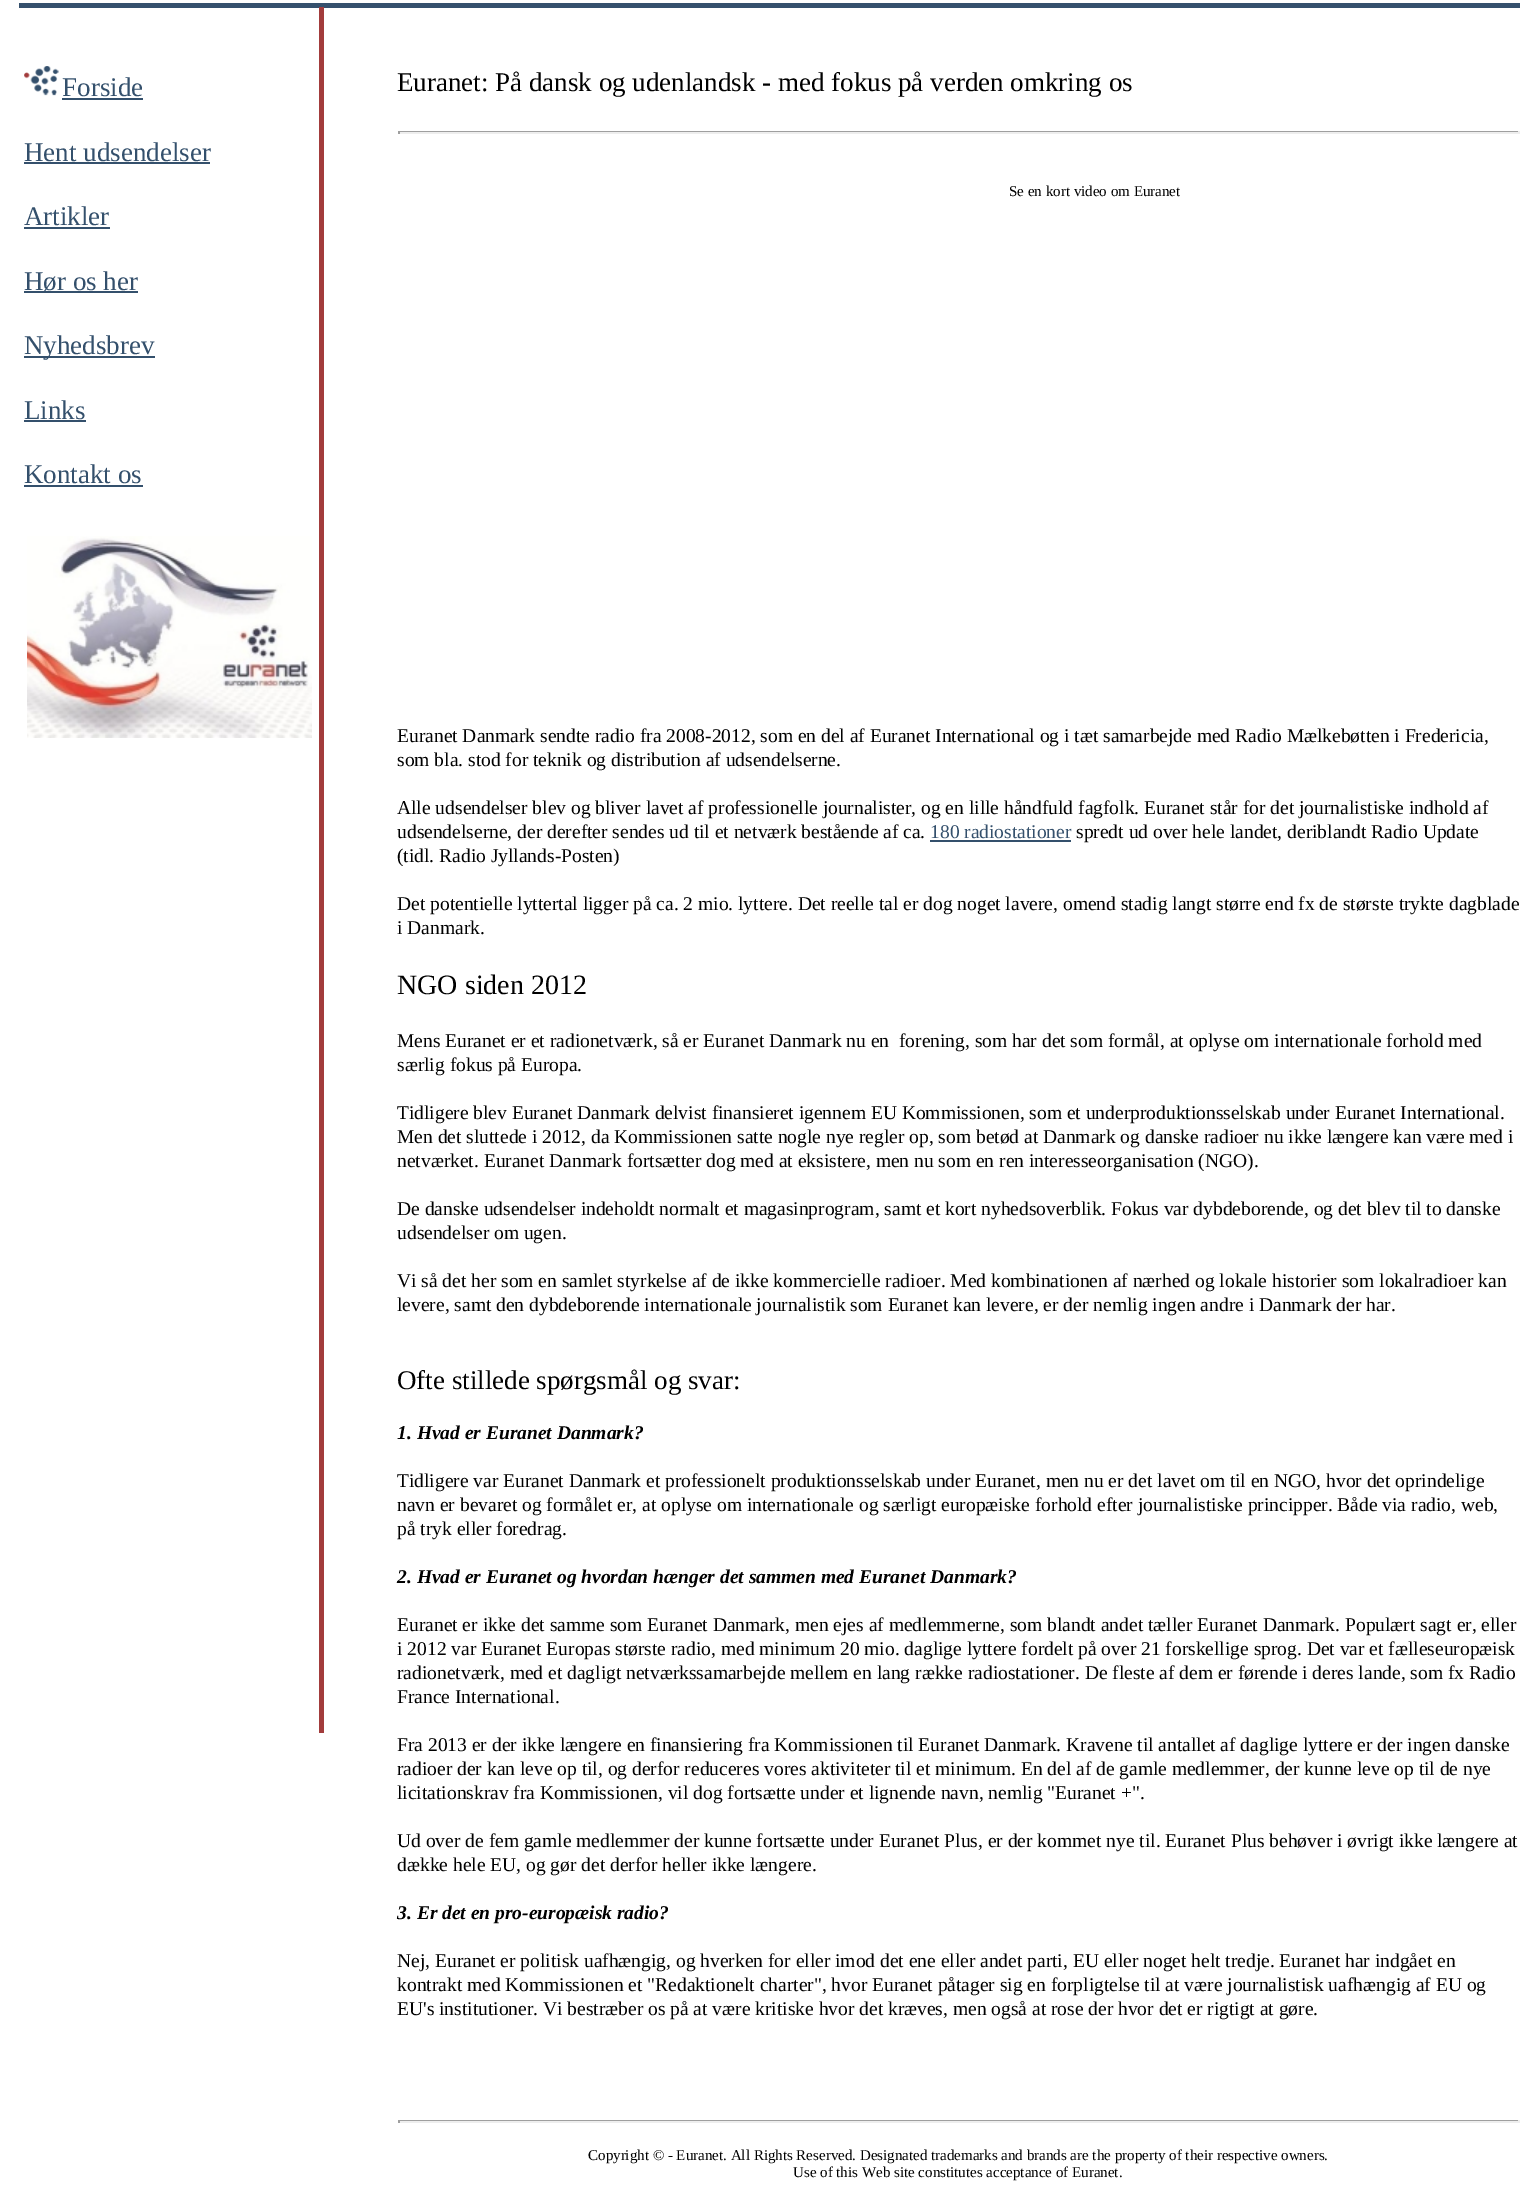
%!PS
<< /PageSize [1538 2191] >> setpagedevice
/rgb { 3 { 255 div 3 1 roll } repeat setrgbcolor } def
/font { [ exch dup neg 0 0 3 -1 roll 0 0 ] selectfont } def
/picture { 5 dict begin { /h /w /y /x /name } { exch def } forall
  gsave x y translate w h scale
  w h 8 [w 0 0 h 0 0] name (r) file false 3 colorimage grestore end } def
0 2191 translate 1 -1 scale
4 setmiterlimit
255 255 255 rgb
0 0 1538 2191 rectfill
53 80 109 rgb
19 3 1501 5 rectfill
(img/1.rgb) 24 66 35 30 picture
[
  [62 98 81 2 52 80 108]
  [24 162 186 2 52 80 108]
  [24 227 86 2 52 80 108]
  [24 291 114 2 52 80 108]
  [24 356 131 2 52 80 108]
  [24 420 62 2 52 80 108]
  [24 485 119 2 52 80 108]
] { aload pop rgb rectfill } forall
(img/2.rgb) 27 536 285 202 picture
[
  [319 7 5 1726 162 60 60]
  [398 131 1122 1 159 159 159]
  [1518 131 2 3 238 238 238]
  [398 132 1122 2 238 238 238]
  [398 131 2 3 159 159 159]
  [930 840 141 2 52 80 108]
  [398 2120 1122 1 159 159 159]
  [1518 2120 2 3 238 238 238]
  [398 2121 1122 2 238 238 238]
  [398 2120 2 3 159 159 159]
] { aload pop rgb rectfill } forall
/LiberationSerif-Regular 27 font
52 80 108 rgb
[
  [(Forside) 62 96]
  [(Hent udsendelser) 24 161]
  [(Artikler) 24 225]
  [(Hør os her) 24 290]
  [(Nyhedsbrev) 24 354]
  [(Links) 24 419]
  [(Kontakt os) 24 483]
] { aload pop moveto show } forall
0 0 0 rgb
397 91 moveto (Euranet: På dansk og udenlandsk - med fokus på verden omkring os) show
/LiberationSerif-Regular 15 font
1009 196 moveto (Se en kort video om Euranet) show
/LiberationSerif-Regular 19.5 font
[
  [(Euranet Danmark sendte radio fra 2008-2012, som en del af Euranet International og i tæt samarbejde med Radio Mælkebøtten i Fredericia,) 397 742]
  [(som bla. stod for teknik og distribution af udsendelserne.) 397 766]
  [(Alle udsendelser blev og bliver lavet af professionelle journalister, og en lille håndfuld fagfolk. Euranet står for det journalistiske indhold af) 397 814]
  [(udsendelserne, der derefter sendes ud til et netværk bestående af ca.) 397 838]
] { aload pop moveto show } forall
52 80 108 rgb
930 838 moveto (180 radiostationer) show
0 0 0 rgb
[
  [(spredt ud over hele landet, deriblandt Radio Update) 1076 838]
  [(\(tidl. Radio Jyllands-Posten\)) 397 862]
  [(Det potentielle lyttertal ligger på ca. 2 mio. lyttere. Det reelle tal er dog noget lavere, omend stadig langt større end fx de største trykte dagblade) 397 910]
  [(i Danmark.) 397 934]
] { aload pop moveto show } forall
/LiberationSerif-Regular 28 font
397 994 moveto (NGO siden 2012) show
/LiberationSerif-Regular 19.5 font
[
  [(Mens Euranet er et radionetværk, så er Euranet Danmark nu en  forening, som har det som formål, at oplyse om internationale forhold med) 397 1047]
  [(særlig fokus på Europa.) 397 1071]
  [(Tidligere blev Euranet Danmark delvist finansieret igennem EU Kommissionen, som et underproduktionsselskab under Euranet International.) 397 1119]
  [(Men det sluttede i 2012, da Kommissionen satte nogle nye regler op, som betød at Danmark og danske radioer nu ikke længere kan være med i) 397 1143]
  [(netværket. Euranet Danmark fortsætter dog med at eksistere, men nu som en ren interesseorganisation \(NGO\).) 397 1167]
  [(De danske udsendelser indeholdt normalt et magasinprogram, samt et kort nyhedsoverblik. Fokus var dybdeborende, og det blev til to danske) 397 1215]
  [(udsendelser om ugen.) 397 1239]
  [(Vi så det her som en samlet styrkelse af de ikke kommercielle radioer. Med kombinationen af nærhed og lokale historier som lokalradioer kan) 397 1287]
  [(levere, samt den dybdeborende internationale journalistik som Euranet kan levere, er der nemlig ingen andre i Danmark der har.) 397 1311]
] { aload pop moveto show } forall
/LiberationSerif-Regular 27 font
397 1389 moveto (Ofte stillede spørgsmål og svar:) show
/LiberationSerif-BoldItalic 19.5 font
397 1439 moveto (1. Hvad er Euranet Danmark?) show
/LiberationSerif-Regular 19.5 font
[
  [(Tidligere var Euranet Danmark et professionelt produktionsselskab under Euranet, men nu er det lavet om til en NGO, hvor det oprindelige) 397 1487]
  [(navn er bevaret og formålet er, at oplyse om internationale og særligt europæiske forhold efter journalistiske principper. Både via radio, web,) 397 1511]
  [(på tryk eller foredrag.) 397 1535]
] { aload pop moveto show } forall
/LiberationSerif-BoldItalic 19.5 font
397 1583 moveto (2. Hvad er Euranet og hvordan hænger det sammen med Euranet Danmark?) show
/LiberationSerif-Regular 19.5 font
[
  [(Euranet er ikke det samme som Euranet Danmark, men ejes af medlemmerne, som blandt andet tæller Euranet Danmark. Populært sagt er, eller) 397 1631]
  [(i 2012 var Euranet Europas største radio, med minimum 20 mio. daglige lyttere fordelt på over 21 forskellige sprog. Det var et fælleseuropæisk) 397 1655]
  [(radionetværk, med et dagligt netværkssamarbejde mellem en lang række radiostationer. De fleste af dem er førende i deres lande, som fx Radio) 397 1679]
  [(France International.) 397 1703]
  [(Fra 2013 er der ikke længere en finansiering fra Kommissionen til Euranet Danmark. Kravene til antallet af daglige lyttere er der ingen danske) 397 1751]
  [(radioer der kan leve op til, og derfor reduceres vores aktiviteter til et minimum. En del af de gamle medlemmer, der kunne leve op til de nye) 397 1775]
  [(licitationskrav fra Kommissionen, vil dog fortsætte under et lignende navn, nemlig "Euranet +".) 397 1799]
  [(Ud over de fem gamle medlemmer der kunne fortsætte under Euranet Plus, er der kommet nye til. Euranet Plus behøver i øvrigt ikke længere at) 397 1847]
  [(dække hele EU, og gør det derfor heller ikke længere.) 397 1871]
] { aload pop moveto show } forall
/LiberationSerif-BoldItalic 19.5 font
397 1919 moveto (3. Er det en pro-europæisk radio?) show
/LiberationSerif-Regular 19.5 font
[
  [(Nej, Euranet er politisk uafhængig, og hverken for eller imod det ene eller andet parti, EU eller noget helt tredje. Euranet har indgået en) 397 1967]
  [(kontrakt med Kommissionen et "Redaktionelt charter", hvor Euranet påtager sig en forpligtelse til at være journalistisk uafhængig af EU og) 397 1991]
  [(EU's institutioner. Vi bestræber os på at være kritiske hvor det kræves, men også at rose der hvor det er rigtigt at gøre.) 397 2015]
] { aload pop moveto show } forall
/LiberationSerif-Regular 15 font
588 2160 moveto (Copyright © - Euranet. All Rights Reserved. Designated trademarks and brands are the property of their respective owners.) show
793 2177 moveto (Use of this Web site constitutes acceptance of Euranet.) show
showpage
